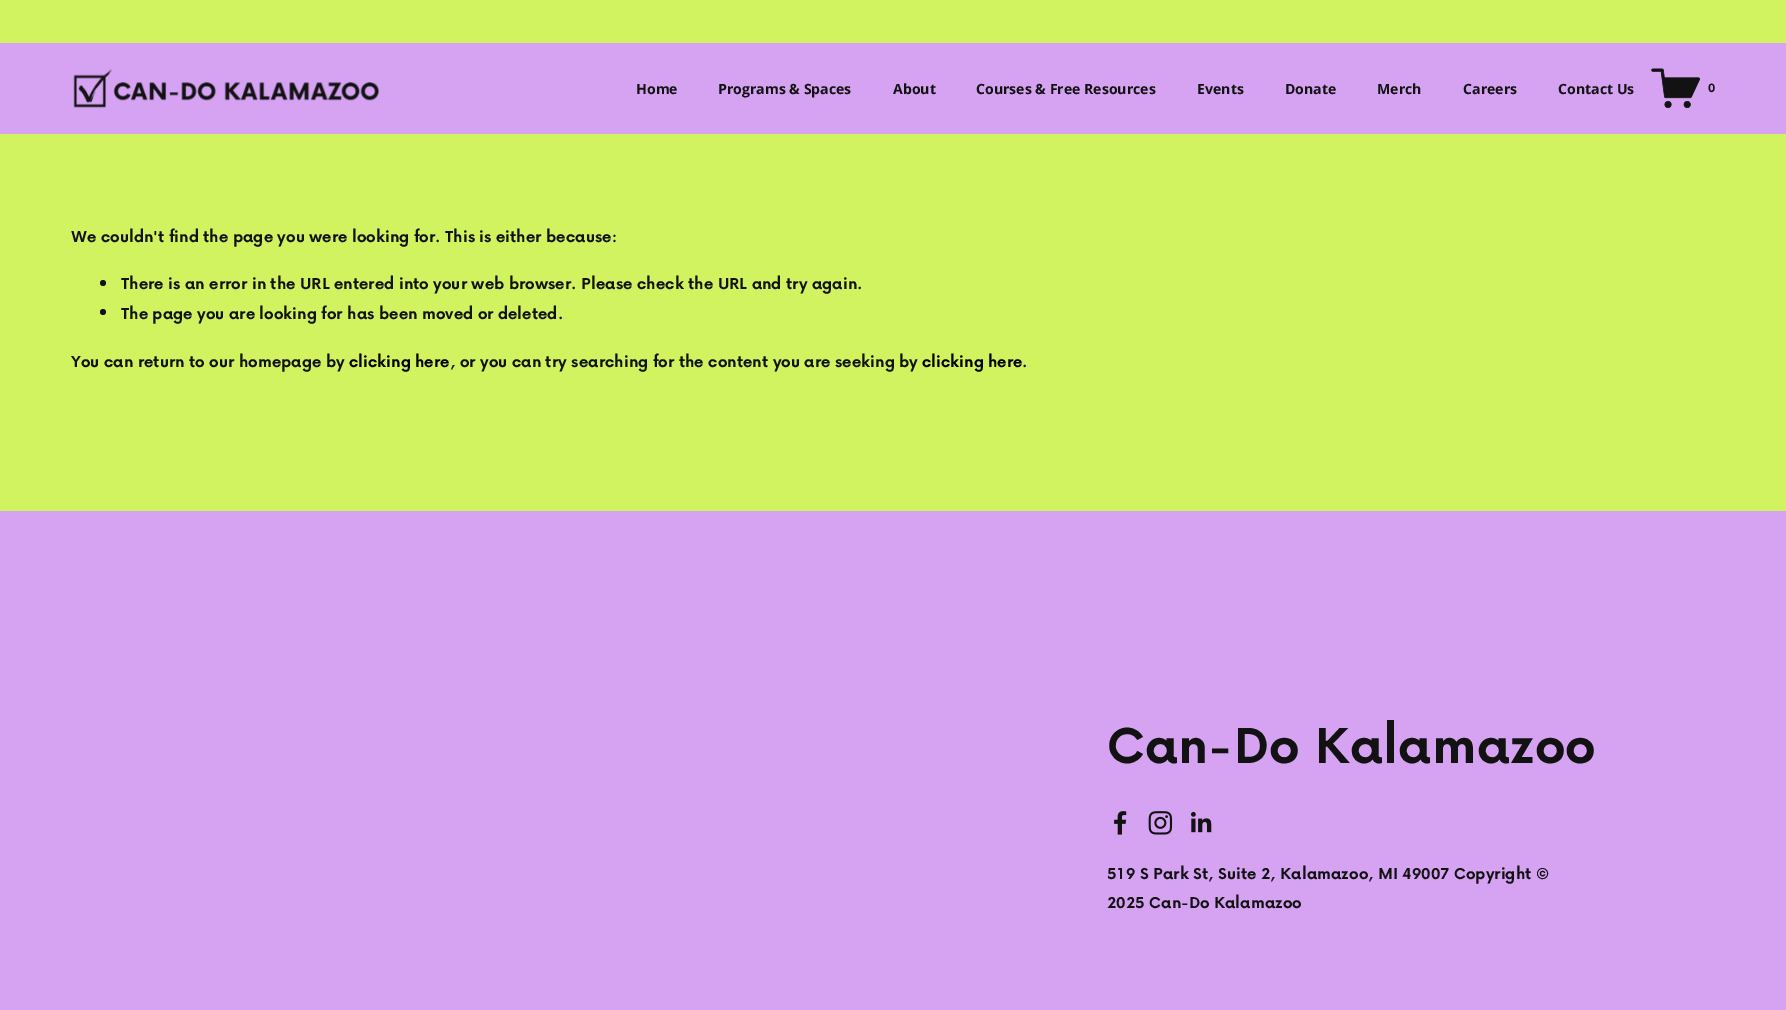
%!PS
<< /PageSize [1786 1010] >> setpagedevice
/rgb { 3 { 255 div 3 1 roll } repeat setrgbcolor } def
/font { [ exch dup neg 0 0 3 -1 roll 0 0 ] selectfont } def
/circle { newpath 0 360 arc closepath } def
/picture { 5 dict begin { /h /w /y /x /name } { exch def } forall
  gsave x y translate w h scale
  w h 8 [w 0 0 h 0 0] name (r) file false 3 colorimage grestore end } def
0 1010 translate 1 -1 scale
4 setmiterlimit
209 243 95 rgb
0 0 1786 1010 rectfill
214 163 243 rgb
0 43 1786 91 rectfill
(img/1.rgb) 73 69 307 39 picture
(img/2.rgb) 1651 68 49 41 picture
18 18 19 rgb
103 283 3 circle fill
103 312 3 circle fill
214 163 243 rgb
0 511 1786 499 rectfill
(img/3.rgb) 1114 811 13 24 picture
(img/4.rgb) 1148 811 25 24 picture
(img/5.rgb) 1191 811 21 22 picture
/OpenSans-Bold 14.1 font
18 18 19 rgb
[
  [(Home) 636 94]
  [(Programs & Spaces) 718 94]
  [(About) 893 94]
  [(Courses & Free Resources) 976 94]
  [(Events) 1197 94]
  [(Donate) 1285 94]
  [(Merch) 1377 94]
  [(Careers) 1463 94]
  [(Contact Us) 1558 94]
] { aload pop moveto show } forall
/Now-Bold 14.1 font
1708 92 moveto (0) show
/Now-Bold 18.4 font
[
  [(We couldn't find the page you were looking for. This is either because:) 71 242]
  [(There is an error in the URL entered into your web browser. Please check the URL and try again.) 121 289]
  [(The page you are looking for has been moved or deleted.) 121 319]
  [(You can return to our homepage by) 71 367]
] { aload pop moveto show } forall
0 0 0 rgb
349 367 moveto (clicking here) show
18 18 19 rgb
450 367 moveto (, or you can try searching for the content you are seeking by) show
0 0 0 rgb
922 367 moveto (clicking here) show
18 18 19 rgb
1022 367 moveto (.) show
/Now-Bold 59 font
1107 763 moveto (Can-Do Kalamazoo) show
/Now-Bold 18.4 font
1107 879 moveto (519 S Park St, Suite 2, Kalamazoo, MI 49007 Copyright ©) show
1107 908 moveto (2025 Can-Do Kalamazoo) show
showpage
